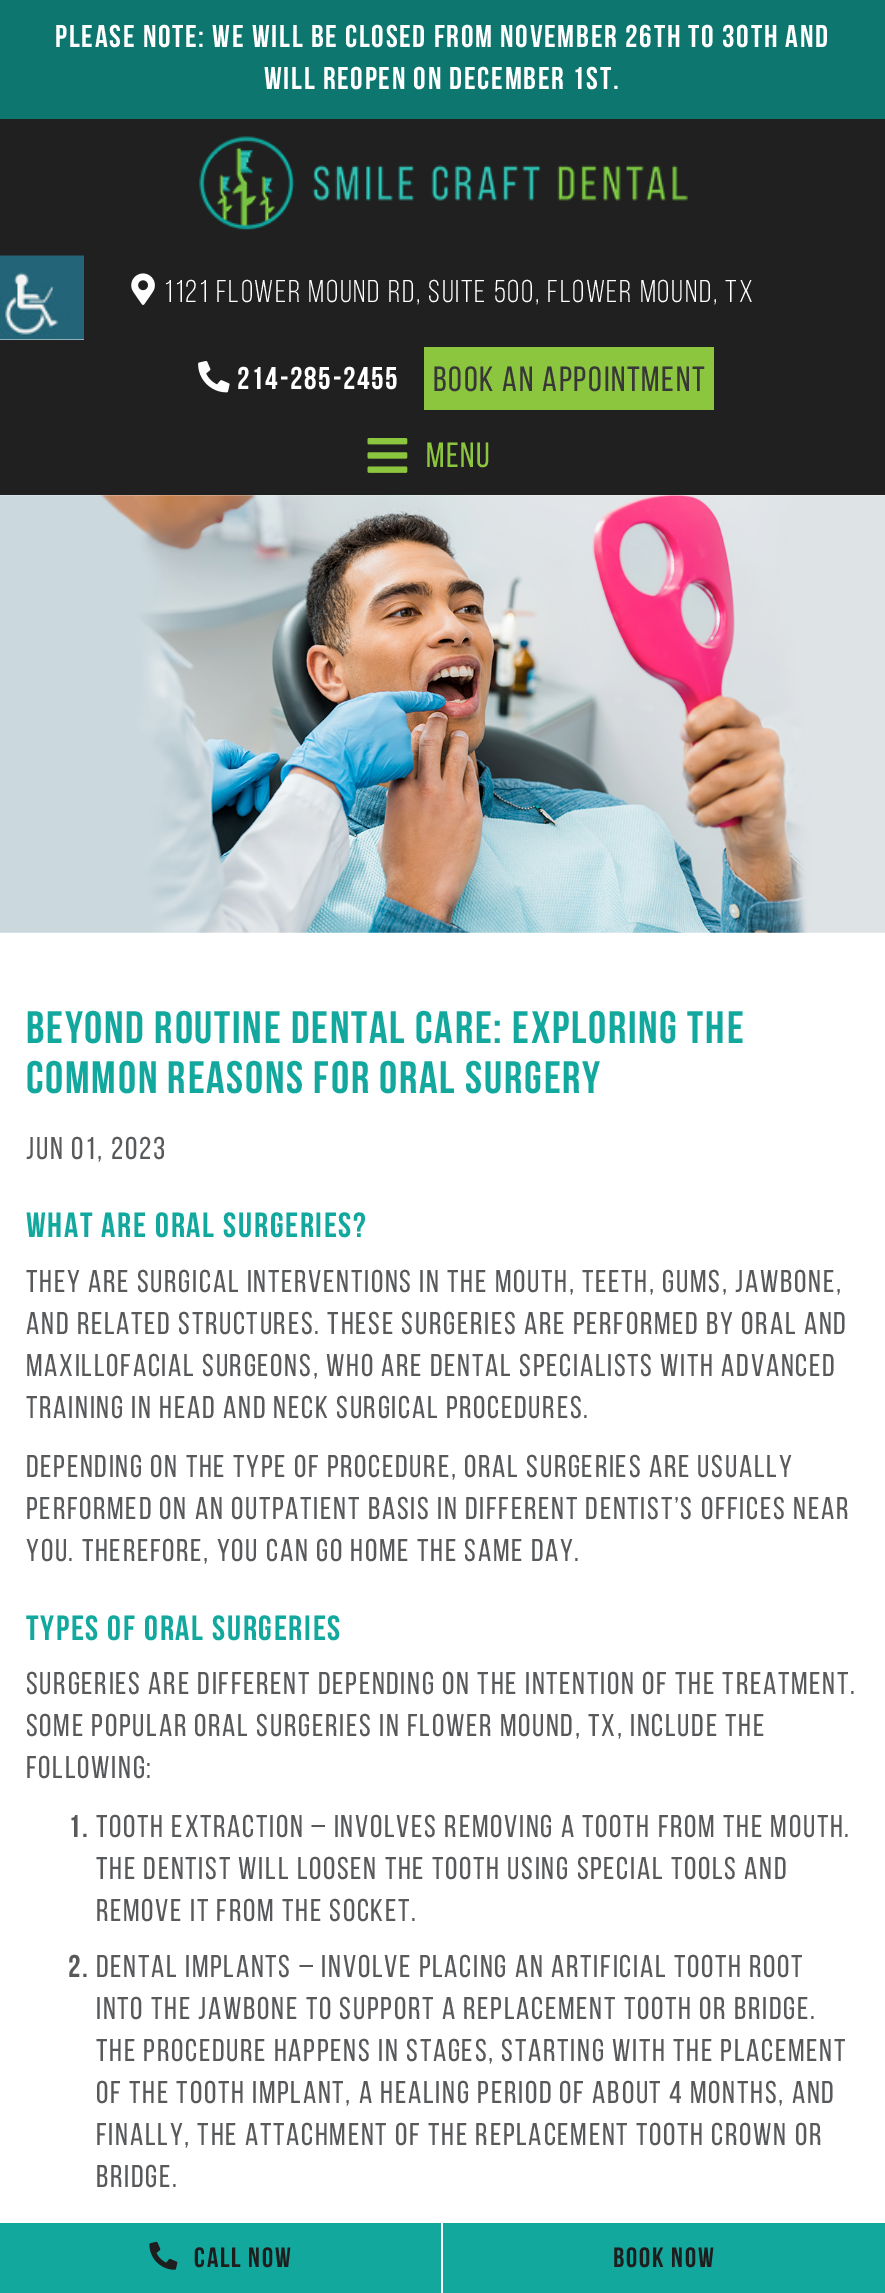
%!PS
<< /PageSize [885 2293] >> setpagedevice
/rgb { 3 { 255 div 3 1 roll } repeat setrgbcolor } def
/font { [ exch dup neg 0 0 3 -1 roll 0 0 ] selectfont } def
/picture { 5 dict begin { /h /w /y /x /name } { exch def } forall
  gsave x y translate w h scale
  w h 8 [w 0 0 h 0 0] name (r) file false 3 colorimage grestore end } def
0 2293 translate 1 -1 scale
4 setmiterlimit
255 255 255 rgb
0 0 885 2293 rectfill
32 32 32 rgb
0 119 885 376 rectfill
255 255 255 rgb
0 339 84 1 rectfill
(img/1.rgb) 0 255 84 85 picture
13 118 110 rgb
0 0 885 119 rectfill
(img/2.rgb) 199 136 489 94 picture
(img/3.rgb) 131 273 24 32 picture
(img/4.rgb) 198 361 32 32 picture
140 198 63 rgb
424 347 290 63 rectfill
(img/5.rgb) 367 438 41 35 picture
(img/6.rgb) 0 495 885 438 picture
19 168 158 rgb
0 2223 441 70 rectfill
(img/7.rgb) 149 2241 29 29 picture
443 2223 442 70 rectfill
/BebasNeue-Bold 31.5 font
255 255 255 rgb
55 47 moveto 1.75 0 (Please note: We will be closed from November 26th to 30th and) ashow
264 89 moveto 1.75 0 (will reopen on December 1st.) ashow
/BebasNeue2-Regular 31.5 font
164 302 moveto 1.75 0 (1121 Flower Mound Rd, Suite 500, Flower Mound, TX) ashow
/BebasNeue-Bold 31.5 font
237 389 moveto 1.75 0 (214-285-2455) ashow
/BebasNeue-Regular 35 font
55 55 55 rgb
433 391 moveto 1.75 0 (BOOK AN APPOINTMENT) ashow
140 198 63 rgb
426 467 moveto 1.75 0 (Menu) ashow
/BebasNeue-Bold 45.5 font
19 168 158 rgb
26 1043 moveto 1.75 0 (Beyond Routine Dental Care: Exploring the) ashow
26 1093 moveto 1.75 0 (Common Reasons for Oral Surgery) ashow
/BebasNeue-Regular 31.5 font
88 89 91 rgb
26 1159 moveto 1.75 0 (Jun 01, 2023) ashow
/BebasNeue-Bold 35 font
19 168 158 rgb
26 1237 moveto 1.75 0 (What Are Oral Surgeries?) ashow
/BebasNeue-Regular 31.5 font
88 89 91 rgb
26 1292 moveto 1.75 0 (They are surgical interventions in the mouth, teeth, gums, jawbone,) ashow
26 1334 moveto 1.75 0 (and related structures. These surgeries are performed by oral and) ashow
26 1376 moveto 1.75 0 (maxillofacial surgeons, who are dental specialists with advanced) ashow
26 1418 moveto 1.75 0 (training in head and neck surgical procedures.) ashow
26 1477 moveto 1.75 0 (Depending on the type of procedure, oral surgeries are usually) ashow
26 1519 moveto 1.75 0 (performed on an outpatient basis in different dentist’s offices near) ashow
26 1561 moveto 1.75 0 (you. Therefore, you can go home the same day.) ashow
/BebasNeue-Bold 35 font
19 168 158 rgb
26 1640 moveto 1.75 0 (Types of Oral Surgeries) ashow
/BebasNeue-Regular 31.5 font
88 89 91 rgb
26 1694 moveto 1.75 0 (Surgeries are different depending on the intention of the treatment.) ashow
26 1736 moveto 1.75 0 (Some popular oral surgeries in Flower Mound, TX, include the) ashow
26 1778 moveto 1.75 0 (following:) ashow
/BebasNeue-Bold 31.5 font
68 1837 moveto 1.75 0 (1.) ashow
/BebasNeue-Regular 31.5 font
96 1837 moveto 1.75 0 (Tooth extraction – involves removing a tooth from the mouth.) ashow
96 1879 moveto 1.75 0 (The dentist will loosen the tooth using special tools and) ashow
96 1921 moveto 1.75 0 (remove it from the socket.) ashow
/BebasNeue-Bold 31.5 font
68 1977 moveto 1.75 0 (2.) ashow
/BebasNeue-Regular 31.5 font
96 1977 moveto 1.75 0 (Dental implants – involve placing an artificial tooth root) ashow
96 2019 moveto 1.75 0 (into the jawbone to support a replacement tooth or bridge.) ashow
96 2061 moveto 1.75 0 (The procedure happens in stages, starting with the placement) ashow
96 2103 moveto 1.75 0 (of the tooth implant, a healing period of about 4 months, and) ashow
96 2145 moveto 1.75 0 (finally, the attachment of the replacement tooth crown or) ashow
96 2187 moveto 1.75 0 (bridge.) ashow
/BebasNeue-Bold 28 font
30 30 30 rgb
194 2267 moveto 1.75 0 (Call Now) ashow
613 2267 moveto 1.75 0 (Book Now) ashow
showpage
